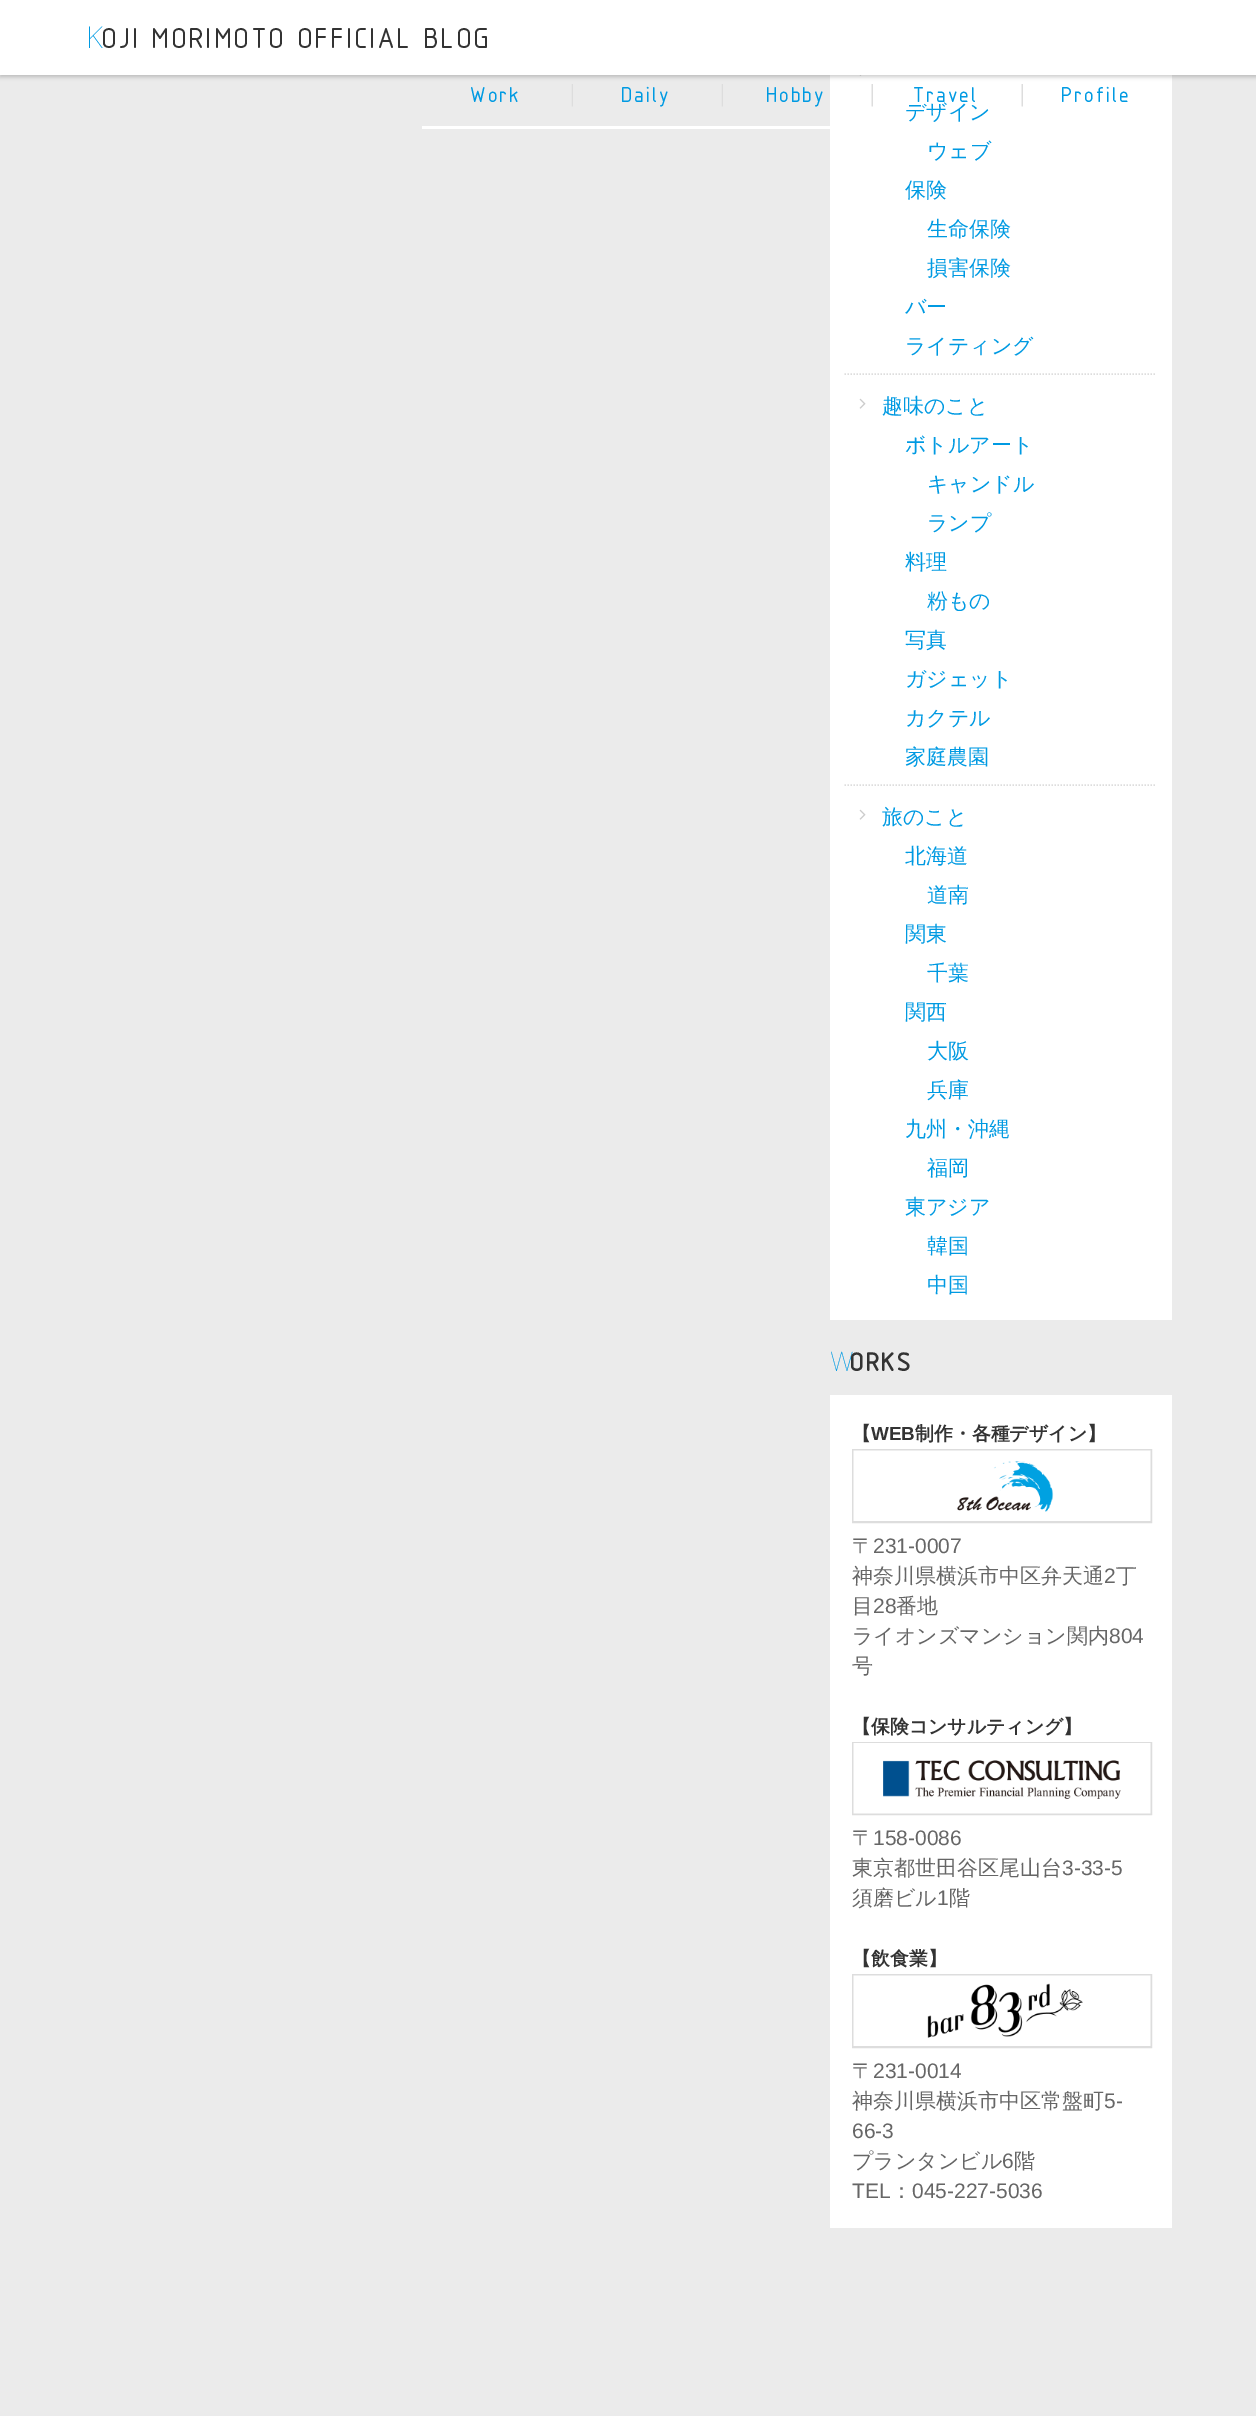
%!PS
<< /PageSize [1256 2416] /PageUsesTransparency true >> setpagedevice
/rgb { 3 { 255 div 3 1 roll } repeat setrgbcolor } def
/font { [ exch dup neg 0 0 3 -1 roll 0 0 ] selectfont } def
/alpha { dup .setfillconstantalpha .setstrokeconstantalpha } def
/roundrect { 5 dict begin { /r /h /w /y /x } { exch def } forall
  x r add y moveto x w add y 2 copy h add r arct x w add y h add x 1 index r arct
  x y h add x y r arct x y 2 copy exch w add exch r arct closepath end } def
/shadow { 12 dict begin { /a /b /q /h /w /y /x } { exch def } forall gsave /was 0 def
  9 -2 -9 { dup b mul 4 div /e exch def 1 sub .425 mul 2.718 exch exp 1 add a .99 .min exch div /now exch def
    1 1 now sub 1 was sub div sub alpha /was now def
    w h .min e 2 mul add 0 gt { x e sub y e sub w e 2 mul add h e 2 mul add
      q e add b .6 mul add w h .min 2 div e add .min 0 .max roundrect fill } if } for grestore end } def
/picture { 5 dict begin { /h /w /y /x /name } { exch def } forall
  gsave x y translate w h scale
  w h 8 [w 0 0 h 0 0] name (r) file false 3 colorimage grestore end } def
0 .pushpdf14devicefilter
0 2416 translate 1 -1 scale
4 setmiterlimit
235 235 235 rgb
0 0 1256 2416 rectfill
255 255 255 rgb
830 75 342 1245 rectfill
(img/3.rgb) 859 75 3 1 picture
0 0 0 rgb
0 2 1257 75 0 2 0.2 shadow
255 255 255 rgb
0 0 1256 75 rectfill
422 126 408 3 rectfill
(img/1.rgb) 571 84 2 23 picture
(img/1.rgb) 721 84 2 23 picture
(img/2.rgb) 871 84 2 23 picture
(img/2.rgb) 1021 84 2 23 picture
221 221 221 rgb
1.5 setlinewidth
[1.5 1.5] 0 setdash
844.5 374 moveto 1156.5 374 lineto stroke
844.5 785 moveto 1156.5 785 lineto stroke
(img/4.rgb) 859 398 7 11 picture
(img/4.rgb) 859 809 7 11 picture
255 255 255 rgb
830 1395 342 833 rectfill
221 221 221 rgb
2 setlinewidth
[] 0 setdash
853 1450 298 72 rectstroke
(img/5.rgb) 853 1450 298 71 picture
853 1743 298 71 rectstroke
(img/6.rgb) 853 1743 298 71 picture
853 1975 298 72 rectstroke
(img/7.rgb) 853 1975 298 71 picture
/NotoSans-Thin 30 font
0 154 226 rgb
86 48 moveto 3 0 (K) ashow
/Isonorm-Medium 30 font
51 51 51 rgb
103 48 moveto 3 0 (OJI) ashow
153 48 moveto 3 0 (MORIMOTO) ashow
299 48 moveto 3 0 (OFFICIAL) ashow
425 48 moveto 3 0 (BLOG) ashow
/Isonorm-Medium 22.5 font
0 154 226 rgb
471 102 moveto 2.25 0 (Work) ashow
622 102 moveto 2.25 0 (Daily) ashow
767 102 moveto 2.25 0 (Hobby) ashow
914 102 moveto 2.25 0 (Travel) ashow
1062 102 moveto 2.25 0 (Profile) ashow
/WenQuanYiZenHei-Medium 21 font
[
  [(デザイン) 905 119]
  [(ウェブ) 927 158]
  [(保険) 905 197]
  [(生命保険) 927 236]
  [(損害保険) 927 275]
  [(バー) 905 314]
  [(ライティング) 905 353]
  [(趣味のこと) 882 413]
  [(ボトルアート) 905 452]
  [(キャンドル) 927 491]
  [(ランプ) 927 530]
  [(料理) 905 569]
  [(粉もの) 927 608]
  [(写真) 905 647]
  [(ガジェット) 905 686]
  [(カクテル) 905 725]
  [(家庭農園) 905 764]
  [(旅のこと) 882 824]
  [(北海道) 905 863]
  [(道南) 927 902]
  [(関東) 905 941]
  [(千葉) 927 980]
  [(関西) 905 1019]
  [(大阪) 927 1058]
  [(兵庫) 927 1097]
  [(九州・沖縄) 905 1136]
  [(福岡) 927 1175]
  [(東アジア) 905 1214]
  [(韓国) 927 1253]
  [(中国) 927 1292]
] { aload pop moveto show } forall
/NotoSans-Thin 27 font
830 1371 moveto 2.5 0 (W) ashow
/Isonorm-Bold 27 font
51 51 51 rgb
851 1371 moveto 2.5 0 (ORKS) ashow
/WenQuanYiZenHei-Bold 18.9 font
852 1440 moveto (【) show
/LiberationSans-Bold 18.9 font
871 1440 moveto (WEB) show
/WenQuanYiZenHei-Bold 18.9 font
915 1440 moveto (制作・各種デザイン】) show
/WenQuanYiZenHei-Medium 21 font
102 102 102 rgb
852 1553 moveto (〒) show
/LiberationSans-Regular 21 font
873 1553 moveto (231-0007) show
/WenQuanYiZenHei-Medium 21 font
852 1583 moveto (神奈川県横浜市中区弁天通) show
/LiberationSans-Regular 21 font
1104 1583 moveto (2) show
/WenQuanYiZenHei-Medium 21 font
1116 1583 moveto (丁) show
852 1613 moveto (目) show
/LiberationSans-Regular 21 font
873 1613 moveto (28) show
/WenQuanYiZenHei-Medium 21 font
896 1613 moveto (番地) show
852 1643 moveto (ライオンズマンション関内) show
/LiberationSans-Regular 21 font
1109 1643 moveto (804) show
/WenQuanYiZenHei-Medium 21 font
852 1673 moveto (号) show
/WenQuanYiZenHei-Bold 18.9 font
51 51 51 rgb
852 1733 moveto (【保険コンサルティング】) show
/WenQuanYiZenHei-Medium 21 font
102 102 102 rgb
852 1845 moveto (〒) show
/LiberationSans-Regular 21 font
873 1845 moveto (158-0086) show
/WenQuanYiZenHei-Medium 21 font
852 1875 moveto (東京都世田谷区尾山台) show
/LiberationSans-Regular 21 font
1062 1875 moveto (3-33-5) show
/WenQuanYiZenHei-Medium 21 font
852 1905 moveto (須磨ビル) show
/LiberationSans-Regular 21 font
937 1905 moveto (1) show
/WenQuanYiZenHei-Medium 21 font
949 1905 moveto (階) show
/WenQuanYiZenHei-Bold 18.9 font
51 51 51 rgb
852 1965 moveto (【飲食業】) show
/WenQuanYiZenHei-Medium 21 font
102 102 102 rgb
852 2078 moveto (〒) show
/LiberationSans-Regular 21 font
873 2078 moveto (231-0014) show
/WenQuanYiZenHei-Medium 21 font
852 2108 moveto (神奈川県横浜市中区常盤町) show
/LiberationSans-Regular 21 font
1104 2108 moveto (5-) show
852 2138 moveto (66-3) show
/WenQuanYiZenHei-Medium 21 font
852 2168 moveto (プランタンビル) show
/LiberationSans-Regular 21 font
1002 2168 moveto (6) show
/WenQuanYiZenHei-Medium 21 font
1014 2168 moveto (階) show
/LiberationSans-Regular 21 font
852 2198 moveto (TEL) show
/WenQuanYiZenHei-Medium 21 font
891 2198 moveto (：) show
/LiberationSans-Regular 21 font
912 2198 moveto (045-227-5036) show
.poppdf14devicefilter showpage
